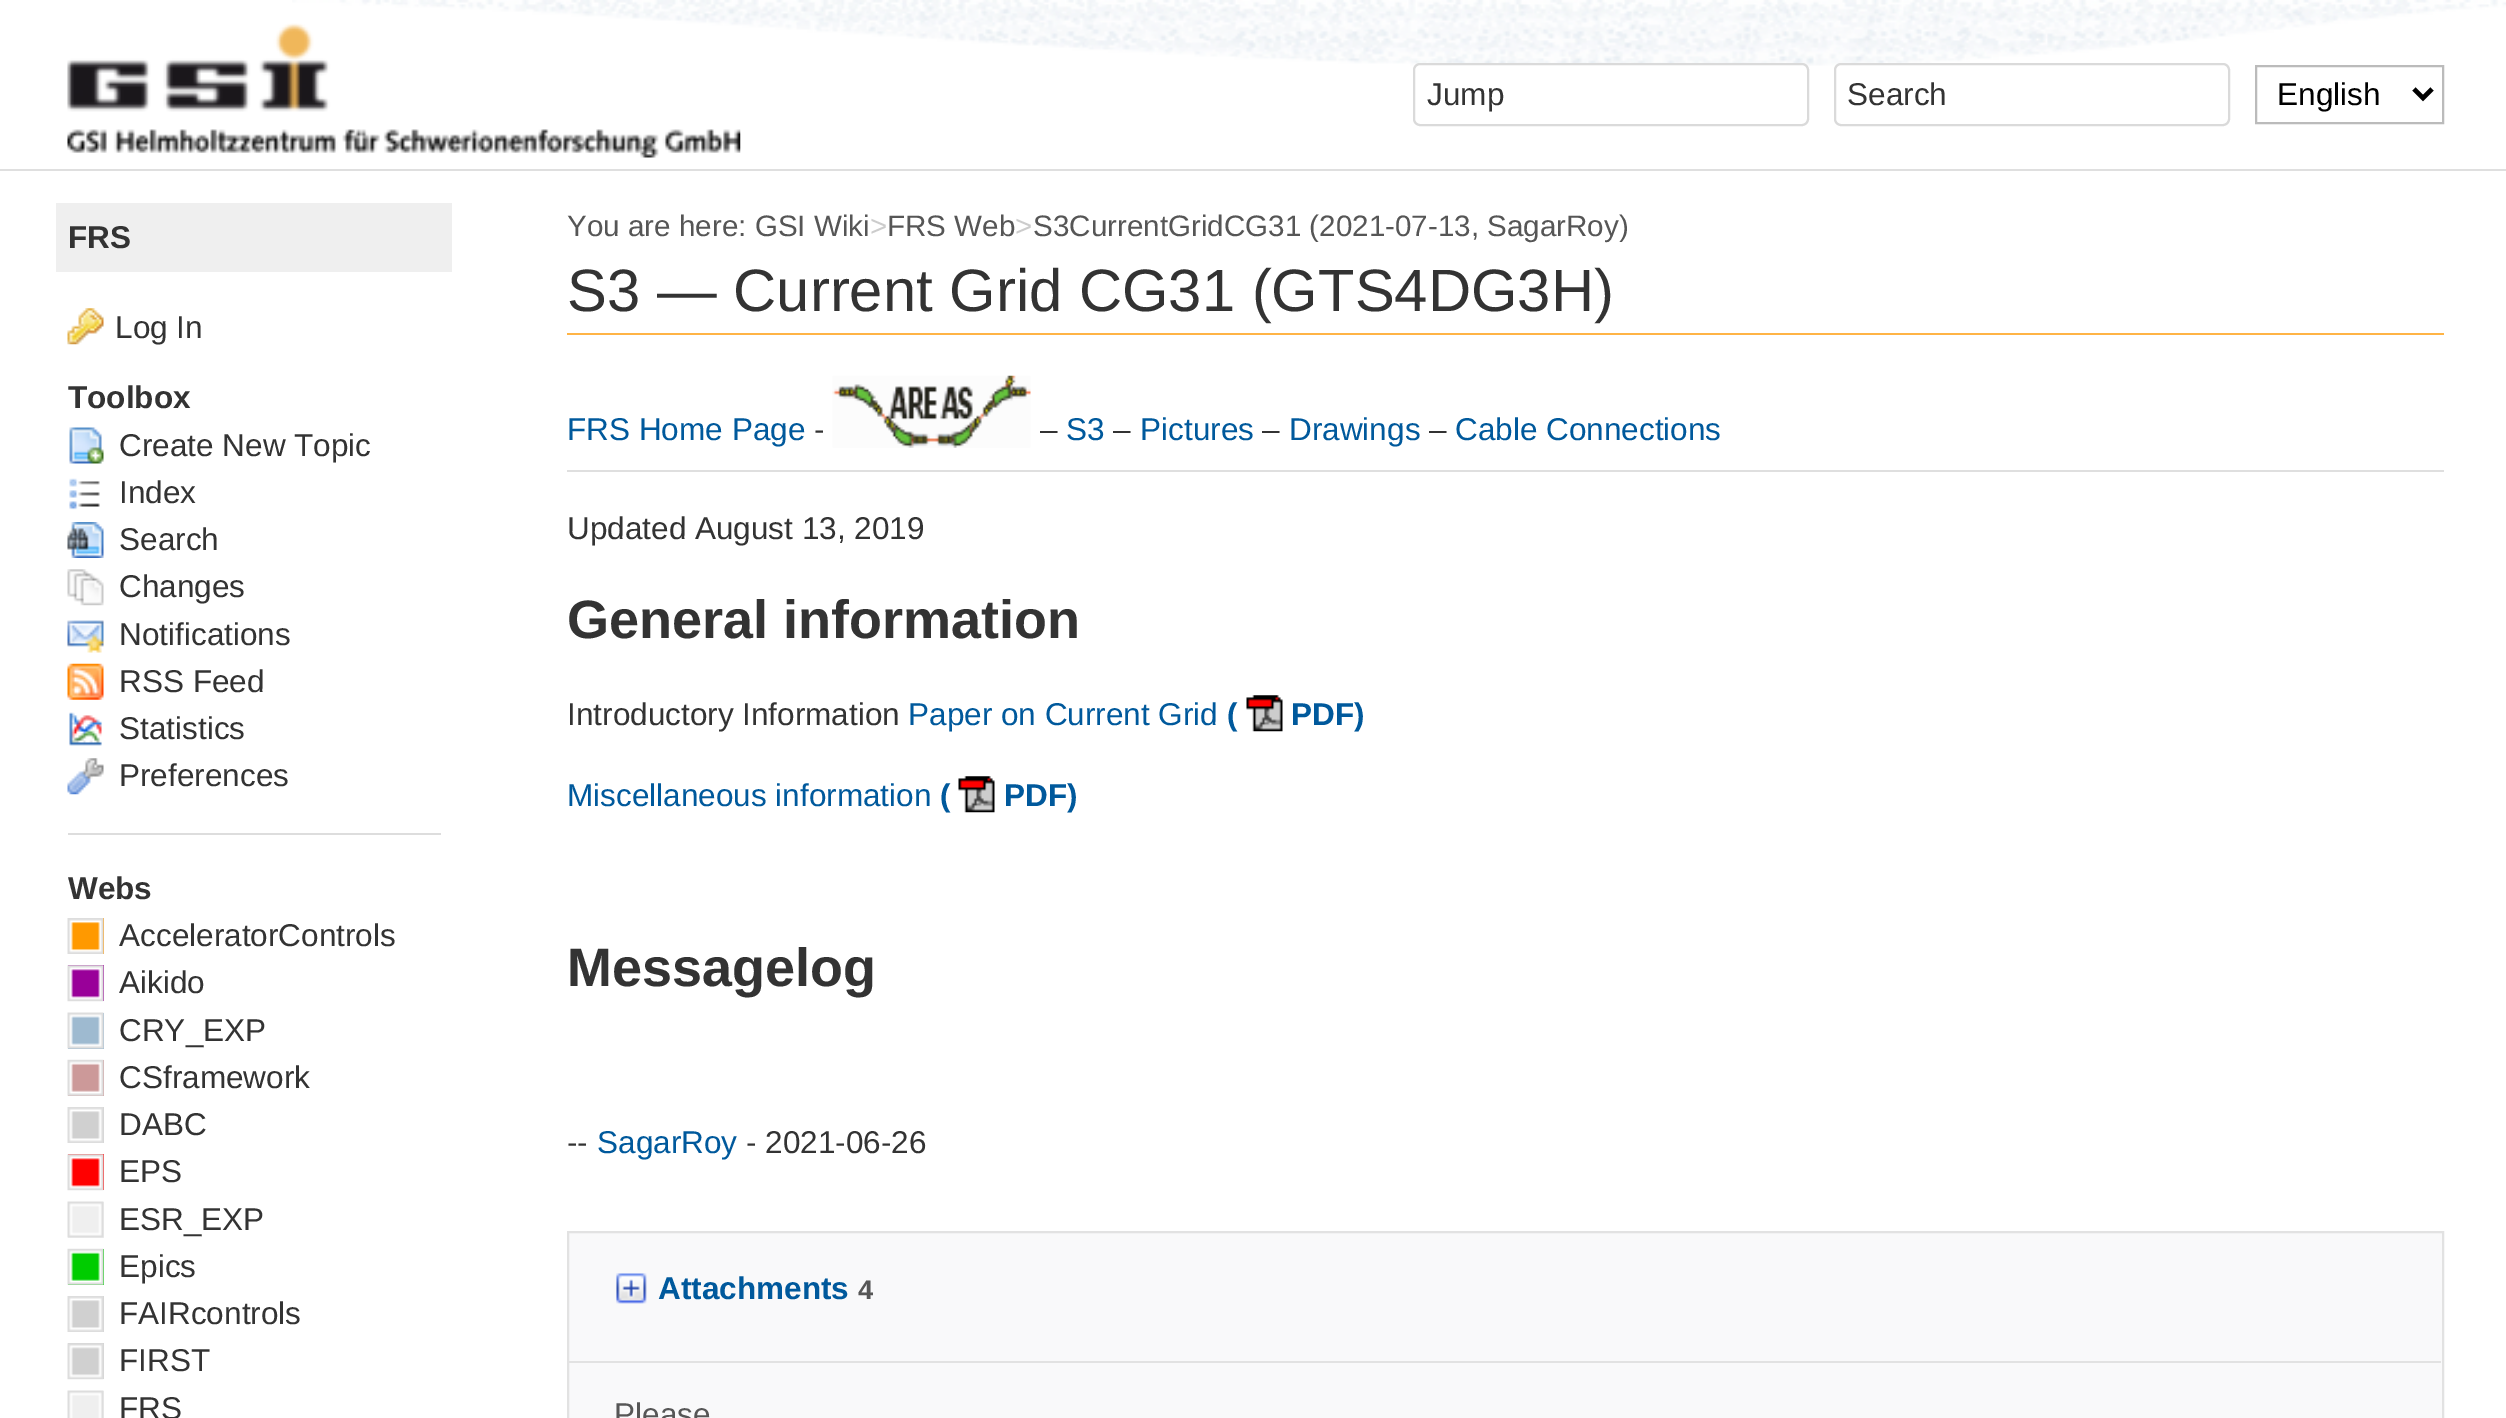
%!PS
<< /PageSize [2506 1418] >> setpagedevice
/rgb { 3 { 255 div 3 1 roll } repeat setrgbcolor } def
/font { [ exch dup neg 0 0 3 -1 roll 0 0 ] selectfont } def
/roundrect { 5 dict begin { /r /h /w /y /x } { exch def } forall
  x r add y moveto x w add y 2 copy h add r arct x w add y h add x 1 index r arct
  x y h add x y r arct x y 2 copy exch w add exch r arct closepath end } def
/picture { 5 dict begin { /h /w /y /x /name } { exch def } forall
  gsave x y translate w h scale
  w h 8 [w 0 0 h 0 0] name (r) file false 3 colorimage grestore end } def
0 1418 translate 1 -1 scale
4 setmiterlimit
223 223 223 rgb
0 0 2506 1418 rectfill
255 255 255 rgb
0 0 2506 169 rectfill
(img/1.rgb) 292 0 2214 68 picture
(img/2.rgb) 67 23 674 135 picture
1414 64 394 61 6 roundrect gsave fill grestore
218 218 218 rgb
2 setlinewidth
stroke
255 255 255 rgb
1835 64 394 61 6 roundrect gsave fill grestore
218 218 218 rgb
stroke
187 187 187 rgb
2256 66 187 57 rectstroke
0 0 0 rgb
4.5 setlinewidth
2414 89 moveto 2423 98 lineto 2432 89 lineto stroke
255 255 255 rgb
0 171 2506 1247 rectfill
239 239 239 rgb
56 203 396 69 rectfill
(img/3.rgb) 67 308 37 37 picture
(img/4.rgb) 69 427 35 37 picture
(img/5.rgb) 69 478 31 32 picture
(img/6.rgb) 67 522 37 36 picture
(img/7.rgb) 67 569 37 37 picture
(img/8.rgb) 67 620 37 33 picture
(img/9.rgb) 67 663 37 37 picture
(img/10.rgb) 69 712 33 34 picture
(img/11.rgb) 67 758 37 37 picture
221 221 221 rgb
68 833 373 2 rectfill
255 153 0 rgb
71 918 33 36 rectfill
(img/12.rgb) 67 918 37 36 picture
153 0 153 rgb
68 965 36 36 rectfill
(img/13.rgb) 67 965 37 37 picture
158 186 208 rgb
68 1013 36 36 rectfill
(img/14.rgb) 67 1012 37 37 picture
204 153 153 rgb
68 1060 36 36 rectfill
(img/15.rgb) 67 1059 37 37 picture
208 208 208 rgb
71 1107 33 36 rectfill
(img/16.rgb) 67 1107 37 36 picture
255 0 0 rgb
68 1154 36 36 rectfill
(img/17.rgb) 67 1154 37 37 picture
239 239 239 rgb
68 1202 36 36 rectfill
(img/18.rgb) 67 1201 37 37 picture
0 204 0 rgb
68 1249 36 36 rectfill
(img/19.rgb) 67 1248 37 37 picture
208 208 208 rgb
71 1296 33 36 rectfill
(img/16.rgb) 67 1296 37 36 picture
68 1343 36 36 rectfill
(img/20.rgb) 67 1343 37 37 picture
239 239 239 rgb
71 1391 33 27 rectfill
(img/21.rgb) 67 1390 37 28 picture
255 180 70 rgb
567 333 1877 2 rectfill
(img/22.rgb) 832 375 199 73 picture
223 223 223 rgb
567 470 1877 2 rectfill
(img/23.rgb) 1246 695 37 37 picture
(img/24.rgb) 958 776 37 37 picture
249 249 250 rgb
568 1232 moveto 2443 1232 lineto 2443 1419 lineto 568 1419 lineto closepath gsave fill grestore
226 226 226 rgb
2 setlinewidth
stroke
(img/25.rgb) 616 1273 31 31 picture
569 1361 1872 2 rectfill
/LiberationSans-Regular 31.5 font
51 51 51 rgb
1427 105 moveto (Jump) show
1847 105 moveto (Search) show
0 0 0 rgb
2277 105 moveto (English) show
/LiberationSans-Bold 31.5 font
51 51 51 rgb
68 248 moveto (FRS) show
/LiberationSans-Regular 31.5 font
115 338 moveto (Log In) show
/LiberationSans-Bold 31.5 font
68 408 moveto (Toolbox) show
/LiberationSans-Regular 31.5 font
[
  [(Create New Topic) 119 456]
  [(Index) 119 503]
  [(Search) 119 550]
  [(Changes) 119 597]
  [(Notifications) 119 645]
  [(RSS Feed) 119 692]
  [(Statistics) 119 739]
  [(Preferences) 119 786]
] { aload pop moveto show } forall
/LiberationSans-Bold 31.5 font
68 899 moveto (Webs) show
/LiberationSans-Regular 31.5 font
[
  [(AcceleratorControls) 119 946]
  [(Aikido) 119 993]
  [(CRY_EXP) 119 1041]
  [(CSframework) 119 1088]
  [(DABC) 119 1135]
  [(EPS) 119 1182]
  [(ESR_EXP) 119 1230]
  [(Epics) 119 1277]
  [(FAIRcontrols) 119 1324]
  [(FIRST) 119 1371]
  [(FRS) 119 1419]
] { aload pop moveto show } forall
/LiberationSans-Regular 29.6 font
86 86 86 rgb
567 236 moveto (You are here: GSI Wiki) show
204 204 204 rgb
870 236 moveto (>) show
86 86 86 rgb
887 236 moveto (FRS Web) show
204 204 204 rgb
1015 236 moveto (>) show
86 86 86 rgb
1033 236 moveto (S3CurrentGridCG31 \(2021-07-13, SagarRoy\)) show
/LiberationSans-Regular 59.8 font
51 51 51 rgb
567 311 moveto (S3 — Current Grid CG31 \(GTS4DG3H\)) show
/LiberationSans-Regular 31.5 font
0 89 156 rgb
567 440 moveto (FRS Home Page) show
51 51 51 rgb
814 440 moveto (-) show
1040 440 moveto (–) show
0 89 156 rgb
1066 440 moveto (S3) show
51 51 51 rgb
1113 440 moveto (–) show
0 89 156 rgb
1140 440 moveto (Pictures) show
51 51 51 rgb
1262 440 moveto (–) show
0 89 156 rgb
1289 440 moveto (Drawings) show
51 51 51 rgb
1429 440 moveto (–) show
0 89 156 rgb
1455 440 moveto (Cable Connections) show
51 51 51 rgb
567 539 moveto (Updated August 13, 2019) show
/LiberationSans-Bold 54 font
567 638 moveto (General information) show
/LiberationSans-Regular 31.5 font
567 725 moveto (Introductory Information) show
0 89 156 rgb
908 725 moveto (Paper on Current Grid) show
/LiberationSans-Bold 31.5 font
1227 725 moveto (\() show
1291 725 moveto (PDF\)) show
/LiberationSans-Regular 31.5 font
567 806 moveto (Miscellaneous information) show
/LiberationSans-Bold 31.5 font
940 806 moveto (\() show
1004 806 moveto (PDF\)) show
/LiberationSans-Bold 54 font
51 51 51 rgb
567 986 moveto (Messagelog) show
/LiberationSans-Regular 31.5 font
567 1153 moveto (--) show
0 89 156 rgb
597 1153 moveto (SagarRoy) show
51 51 51 rgb
746 1153 moveto (- 2021-06-26) show
/LiberationSans-Bold 31.5 font
0 89 156 rgb
658 1299 moveto (Attachments) show
/LiberationSans-Bold 27 font
86 86 86 rgb
858 1299 moveto (4) show
/LiberationSans-Regular 31.5 font
614 1425 moveto (Please) show
showpage
